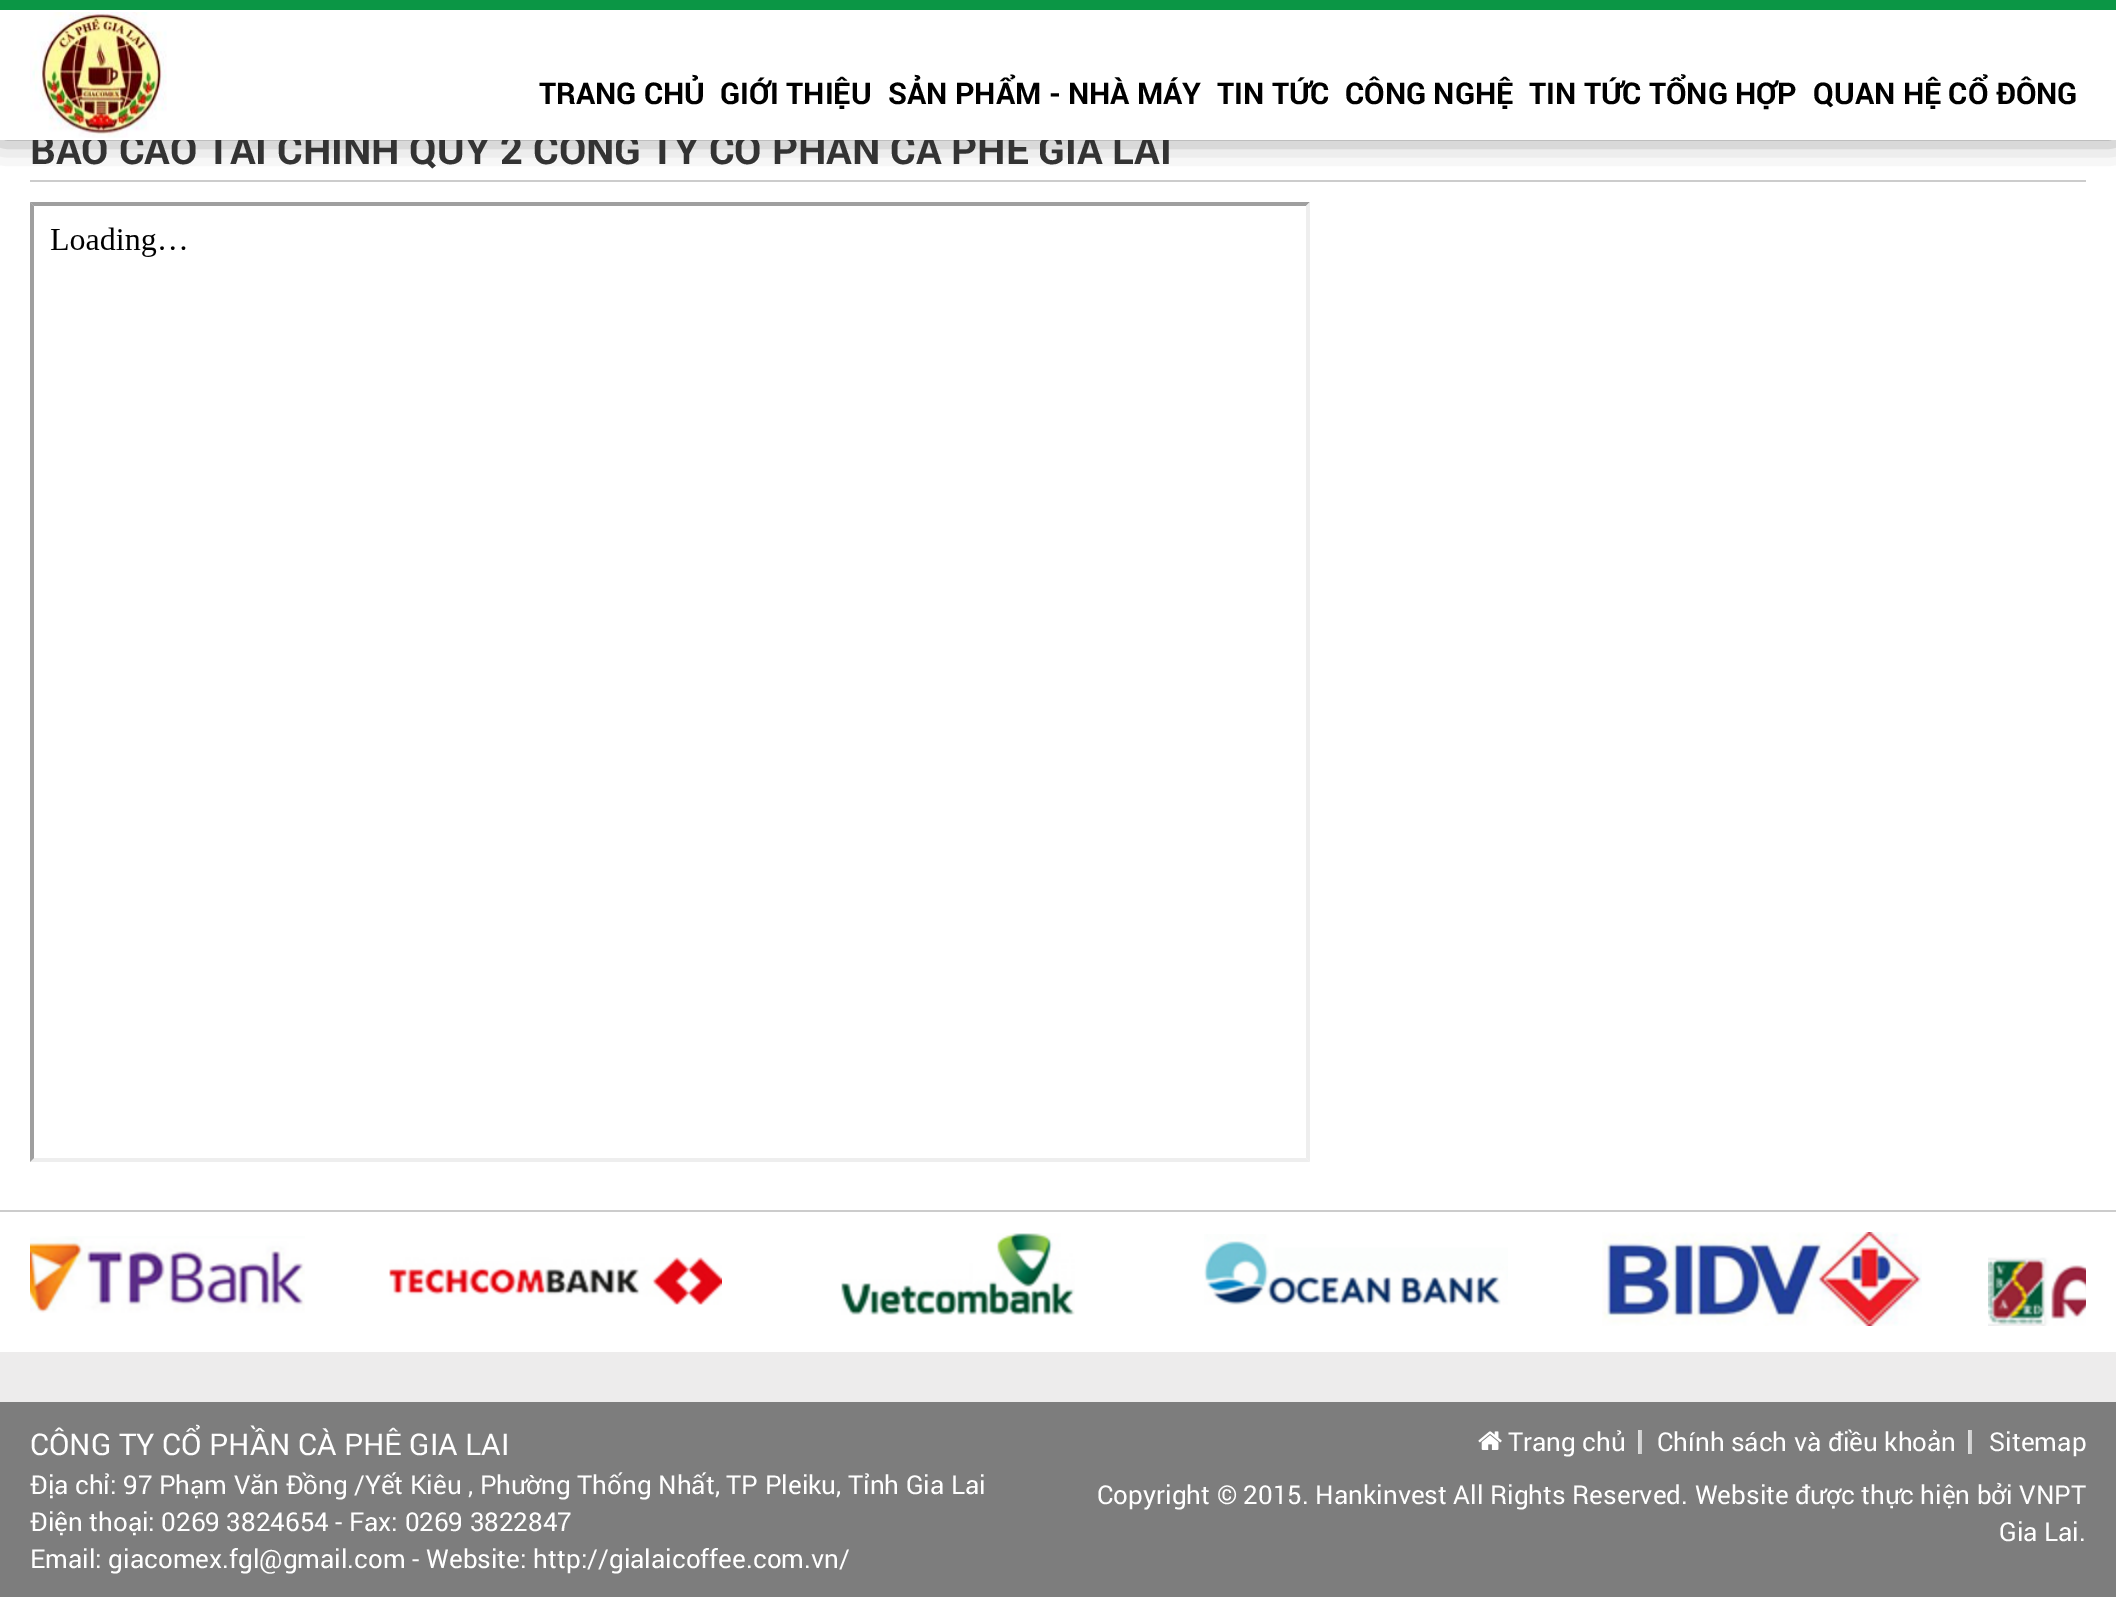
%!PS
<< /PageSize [2116 1597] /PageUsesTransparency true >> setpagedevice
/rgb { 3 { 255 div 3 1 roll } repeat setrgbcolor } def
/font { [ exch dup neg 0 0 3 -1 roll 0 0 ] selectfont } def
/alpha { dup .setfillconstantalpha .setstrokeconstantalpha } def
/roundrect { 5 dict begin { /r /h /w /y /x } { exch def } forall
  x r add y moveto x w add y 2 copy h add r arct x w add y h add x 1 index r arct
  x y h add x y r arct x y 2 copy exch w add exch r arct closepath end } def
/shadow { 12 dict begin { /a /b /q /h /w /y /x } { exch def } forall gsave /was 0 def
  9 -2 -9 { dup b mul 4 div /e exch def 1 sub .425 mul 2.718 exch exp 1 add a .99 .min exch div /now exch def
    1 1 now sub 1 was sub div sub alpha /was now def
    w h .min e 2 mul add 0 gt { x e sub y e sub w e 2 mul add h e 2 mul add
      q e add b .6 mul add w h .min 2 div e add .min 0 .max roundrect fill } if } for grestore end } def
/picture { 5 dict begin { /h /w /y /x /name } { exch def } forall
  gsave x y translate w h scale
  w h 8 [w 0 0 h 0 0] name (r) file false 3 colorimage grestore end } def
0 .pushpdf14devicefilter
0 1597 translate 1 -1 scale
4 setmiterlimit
255 255 255 rgb
0 0 2116 1597 rectfill
0 0 0 rgb
0 -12 2116 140 0 17 1 shadow
11 150 69 rgb
0 0 2116 10 rectfill
204 204 204 rgb
30 180 2056 2 rectfill
159 159 159 rgb
30 202 moveto 1310 202 lineto 1306 206 lineto 34 206 lineto closepath fill
238 238 238 rgb
1310 202 moveto 1310 1162 lineto 1306 1158 lineto 1306 206 lineto closepath fill
1310 1162 moveto 30 1162 lineto 34 1158 lineto 1306 1158 lineto closepath fill
159 159 159 rgb
30 1162 moveto 30 202 lineto 34 206 lineto 34 1158 lineto closepath fill
(img/2.rgb) 50 227 136 30 picture
204 204 204 rgb
0 1210 2116 2 rectfill
(img/3.rgb) 30 1236 275 77 picture
(img/4.rgb) 389 1257 333 48 picture
(img/5.rgb) 841 1233 234 82 picture
(img/6.rgb) 1204 1234 304 71 picture
(img/7.rgb) 1602 1232 320 94 picture
(img/8.rgb) 1988 1257 98 69 picture
237 236 236 rgb
0 1352 2116 50 rectfill
125 125 125 rgb
0 1402 2116 195 rectfill
(img/9.rgb) 1638 1430 4 24 picture
(img/10.rgb) 1478 1431 24 19 picture
(img/9.rgb) 1968 1430 4 24 picture
/Roboto-Bold 40 font
51 51 51 rgb
30 164 moveto (BÁO CÁO TÀI CHÍNH QUÝ 2 CÔNG TY CỔ PHẦN CÀ PHÊ GIA LAI) show
255 255 255 rgb
0 10 2116 130 rectfill
/Roboto-Bold 30 font
0 0 0 rgb
[
  [(QUAN HỆ CỔ ĐÔNG) 1813 104]
  [(TIN TỨC TỔNG HỢP) 1529 104]
  [(CÔNG NGHỆ) 1345 104]
  [(TIN TỨC) 1217 104]
  [(SẢN PHẨM - NHÀ MÁY) 888 104]
  [(GIỚI THIỆU) 720 104]
  [(TRANG CHỦ) 539 104]
] { aload pop moveto show } forall
(img/1.rgb) 30 12 137 126 picture
/Roboto-Regular 30 font
255 255 255 rgb
30 1455 moveto (CÔNG TY CỔ PHẦN CÀ PHÊ GIA LAI) show
/Roboto-Regular 26 font
[
  [(Địa chỉ: 97 Phạm Văn Đồng /Yết Kiêu , Phường Thống Nhất, TP Pleiku, Tỉnh Gia Lai) 30 1494]
  [(Điện thoại: 0269 3824654 - Fax: 0269 3822847) 30 1531]
  [(Email: giacomex.fgl@gmail.com - Website: http://gialaicoffee.com.vn/) 30 1568]
  [(Trang chủ) 1508 1451]
  [(Chính sách và điều khoản) 1657 1451]
  [(Sitemap) 1989 1451]
  [(Copyright © 2015. Hankinvest All Rights Reserved. Website được thực hiện bởi VNPT) 1097 1504]
  [(Gia Lai.) 1999 1541]
] { aload pop moveto show } forall
.poppdf14devicefilter showpage
